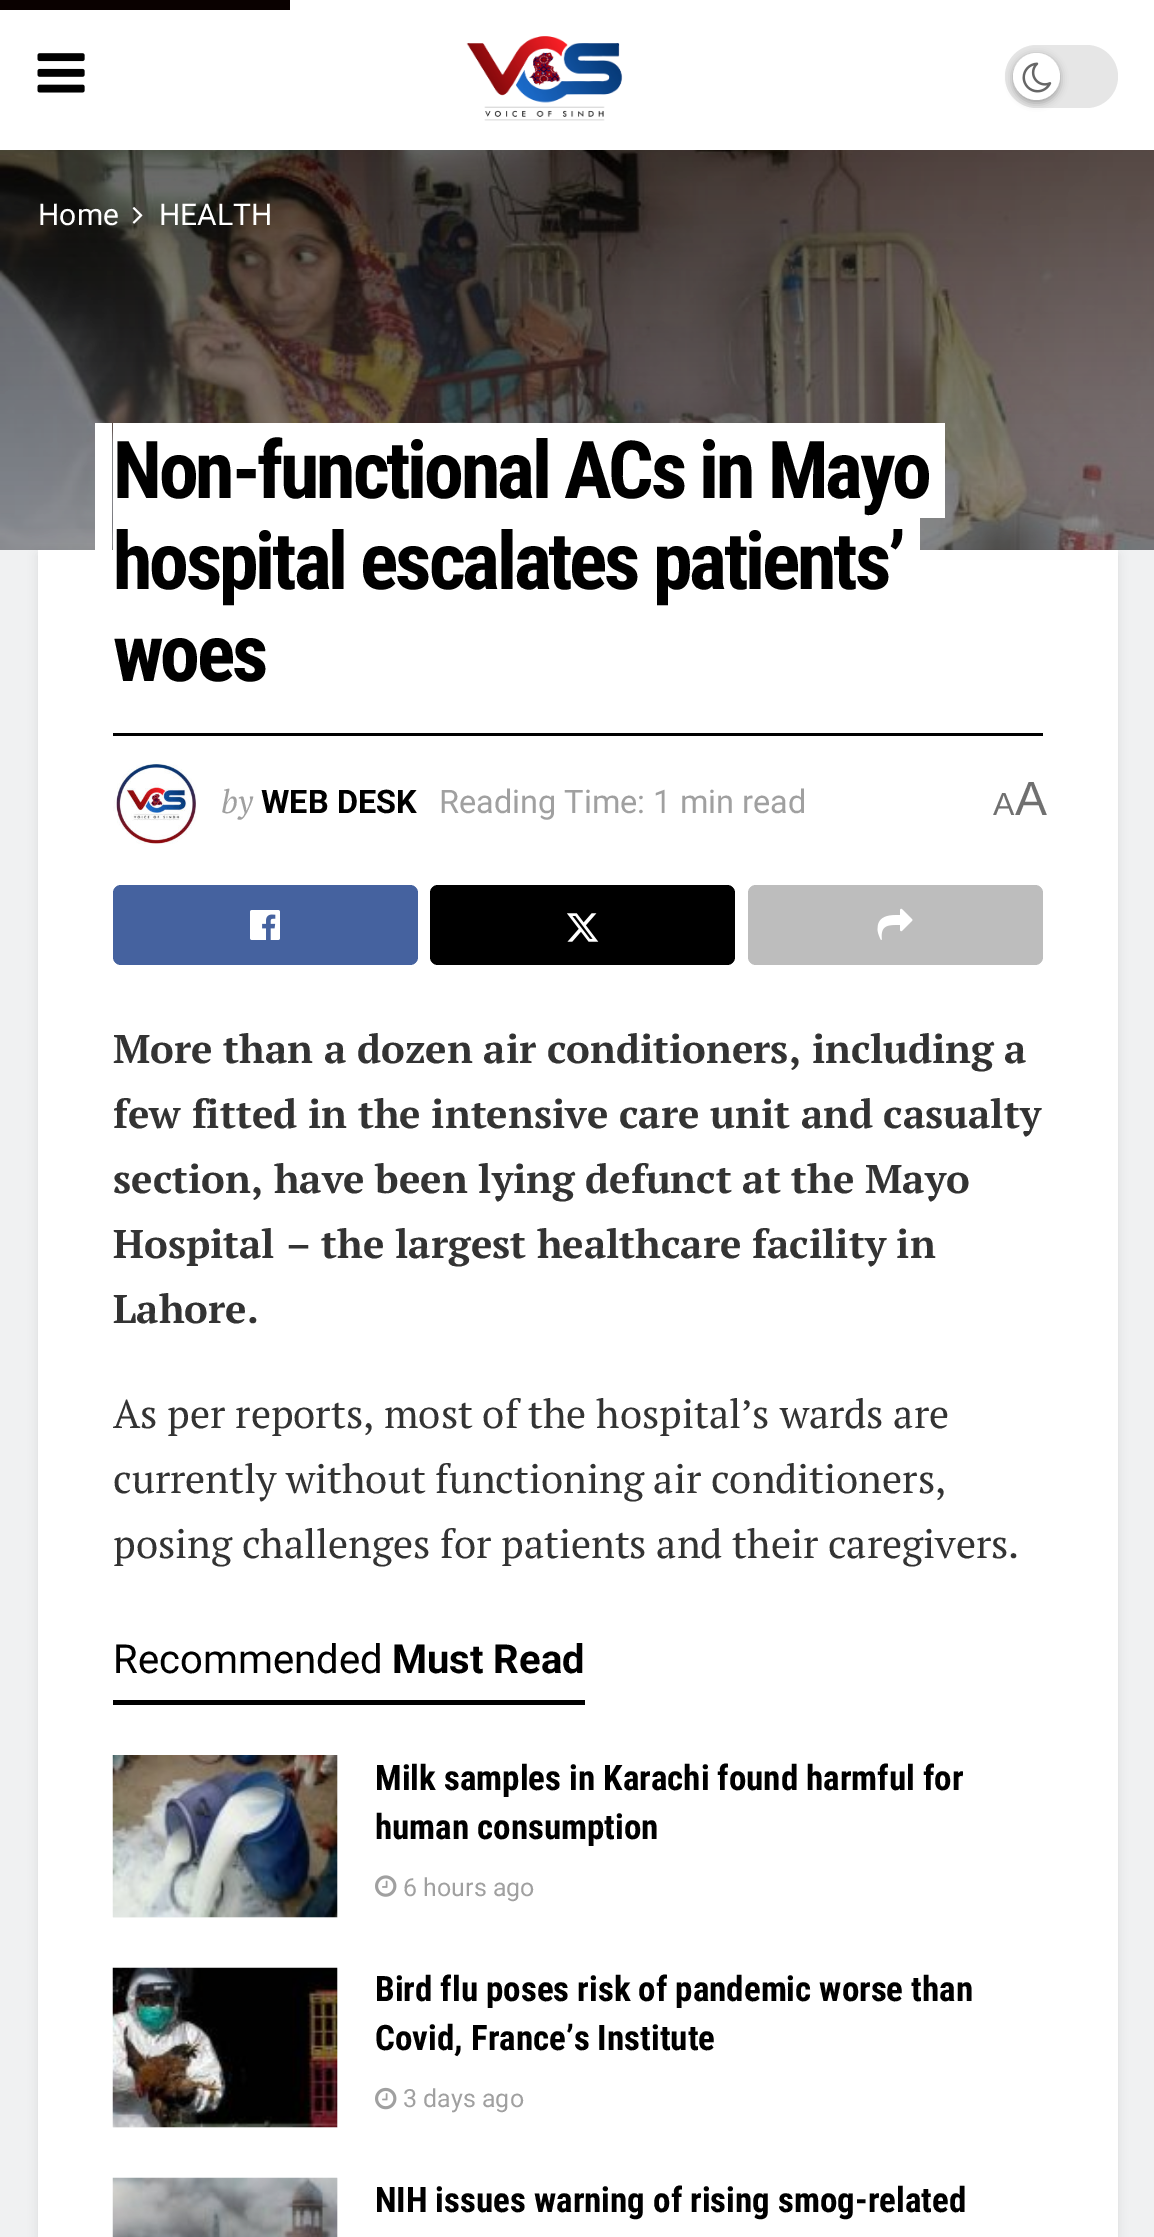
%!PS
<< /PageSize [1154 2237] /PageUsesTransparency true >> setpagedevice
/rgb { 3 { 255 div 3 1 roll } repeat setrgbcolor } def
/font { [ exch dup neg 0 0 3 -1 roll 0 0 ] selectfont } def
/alpha { dup .setfillconstantalpha .setstrokeconstantalpha } def
/circle { newpath 0 360 arc closepath } def
/roundrect { 5 dict begin { /r /h /w /y /x } { exch def } forall
  x r add y moveto x w add y 2 copy h add r arct x w add y h add x 1 index r arct
  x y h add x y r arct x y 2 copy exch w add exch r arct closepath end } def
/shadow { 12 dict begin { /a /b /q /h /w /y /x } { exch def } forall gsave /was 0 def
  9 -2 -9 { dup b mul 4 div /e exch def 1 sub .425 mul 2.718 exch exp 1 add a .99 .min exch div /now exch def
    1 1 now sub 1 was sub div sub alpha /was now def
    w h .min e 2 mul add 0 gt { x e sub y e sub w e 2 mul add h e 2 mul add
      q e add b .6 mul add w h .min 2 div e add .min 0 .max roundrect fill } if } for grestore end } def
/picture { 5 dict begin { /h /w /y /x /name } { exch def } forall
  gsave x y translate w h scale
  w h 8 [w 0 0 h 0 0] name (r) file false 3 colorimage grestore end } def
0 .pushpdf14devicefilter
0 2237 translate 1 -1 scale
4 setmiterlimit
255 255 255 rgb
0 0 1154 2237 rectfill
10 1 0 rgb
0 0 290 10 rectfill
(img/1.rgb) 37 53 48 40 picture
(img/2.rgb) 466 36 157 85 picture
230 230 230 rgb
1005 45 113 63 31.5 roundrect fill
0 0 0 rgb
1013 55 47 48 23.5 4 0.3 shadow
255 255 255 rgb
1036.5 76.5 23.5 circle fill
(img/3.rgb) 1022 62 30 31 picture
240 241 242 rgb
0 550 1154 1687 rectfill
gsave 0 150 moveto 1154 150 lineto 1154 550 lineto 0 550 lineto closepath clip newpath
<< /ShadingType 2 /ColorSpace /DeviceRGB /Coords [578 150 578 550] /Extend [true true] /Function << /FunctionType 2 /Domain [0 1] /C0 [0 0 0] /C1 [0.329 0.329 0.329] /N 1 >> >> shfill grestore
(img/4.rgb) 0 150 1154 400 picture
(img/5.rgb) 132 207 11 17 picture
0 0 0 rgb
38 555 1080 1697 0 5 0.08 shadow
255 255 255 rgb
38 550 1080 1687 rectfill
95 423 moveto 95 518 lineto 910 518 lineto 112 518 lineto 112 423 lineto closepath fill
130 518 moveto 945 518 lineto 945 423 lineto 928 423 lineto 928 518 lineto closepath fill
[
  [113 423 815 95 255 255 255]
  [95 518 17 32 255 255 255]
  [113 518 807 32 255 255 255]
  [113 733 930 3 0 0 0]
] { aload pop rgb rectfill } forall
(img/6.rgb) 113 760 84 84 picture
69 98 159 rgb
113 885 305 80 8 roundrect fill
(img/7.rgb) 250 910 30 30 picture
0 0 0 rgb
430 885 305 80 8 roundrect fill
(img/8.rgb) 567 913 32 29 picture
189 189 189 rgb
748 885 295 80 8 roundrect fill
(img/9.rgb) 877 908 36 32 picture
0 0 0 rgb
113 1700 472 5 rectfill
247 247 247 rgb
113 1755 225 163 rectfill
(img/10.rgb) 112 1755 226 163 picture
(img/11.rgb) 375 1875 22 22 picture
113 1968 225 160 rectfill
(img/12.rgb) 112 1967 226 161 picture
(img/13.rgb) 375 2087 22 23 picture
337 2178 1 59 rectfill
(img/14.rgb) 112 2177 226 60 picture
/Roboto-Regular 30 font
255 255 255 rgb
38 225 moveto (Home) show
159 225 moveto (HEALTH) show
/RobotoCondensed-Bold 80 font
0 0 0 rgb
113 498 moveto -3.2 0 (Non-functional ACs in Mayo) ashow
113 589 moveto -3.2 0 (hospital escalates patients’) ashow
113 681 moveto -3.2 0 (woes) ashow
/PTSerif-Italic 32.5 font
160 160 160 rgb
221 813 moveto (by) show
/Roboto-Bold 32.5 font
0 0 0 rgb
261 813 moveto (WEB DESK) show
/Roboto-Regular 32.5 font
160 160 160 rgb
439 813 moveto (Reading Time: 1 min read) show
/LiberationSans-Regular 32 font
112 112 112 rgb
993 815 moveto (A) show
/LiberationSans-Regular 48 font
1015 815 moveto (A) show
/PTSerif-Bold 40 font
51 51 51 rgb
[
  [(More than a dozen air conditioners, including a) 113 1063]
  [(few fitted in the intensive care unit and casualty) 113 1128]
  [(section, have been lying defunct at the Mayo) 113 1193]
  [(Hospital – the largest healthcare facility in) 113 1258]
  [(Lahore.) 113 1323]
] { aload pop moveto show } forall
/PTSerif-Regular 40 font
[
  [(As per reports, most of the hospital’s wards are) 113 1428]
  [(currently without functioning air conditioners,) 113 1493]
  [(posing challenges for patients and their caregivers.) 113 1558]
] { aload pop moveto show } forall
/Roboto-Regular 40 font
0 0 0 rgb
113 1673 moveto (Recommended) show
/Roboto-Bold 40 font
392 1673 moveto (Must Read) show
/RobotoCondensed-Bold 35 font
375 1790 moveto (Milk samples in Karachi found harmful for) show
375 1839 moveto (human consumption) show
/Roboto-Regular 25 font
160 160 160 rgb
403 1896 moveto (6 hours ago) show
/RobotoCondensed-Bold 35 font
0 0 0 rgb
375 2001 moveto (Bird flu poses risk of pandemic worse than) show
375 2050 moveto (Covid, France’s Institute) show
/Roboto-Regular 25 font
160 160 160 rgb
403 2107 moveto (3 days ago) show
/RobotoCondensed-Bold 35 font
0 0 0 rgb
375 2212 moveto (NIH issues warning of rising smog-related) show
.poppdf14devicefilter showpage
